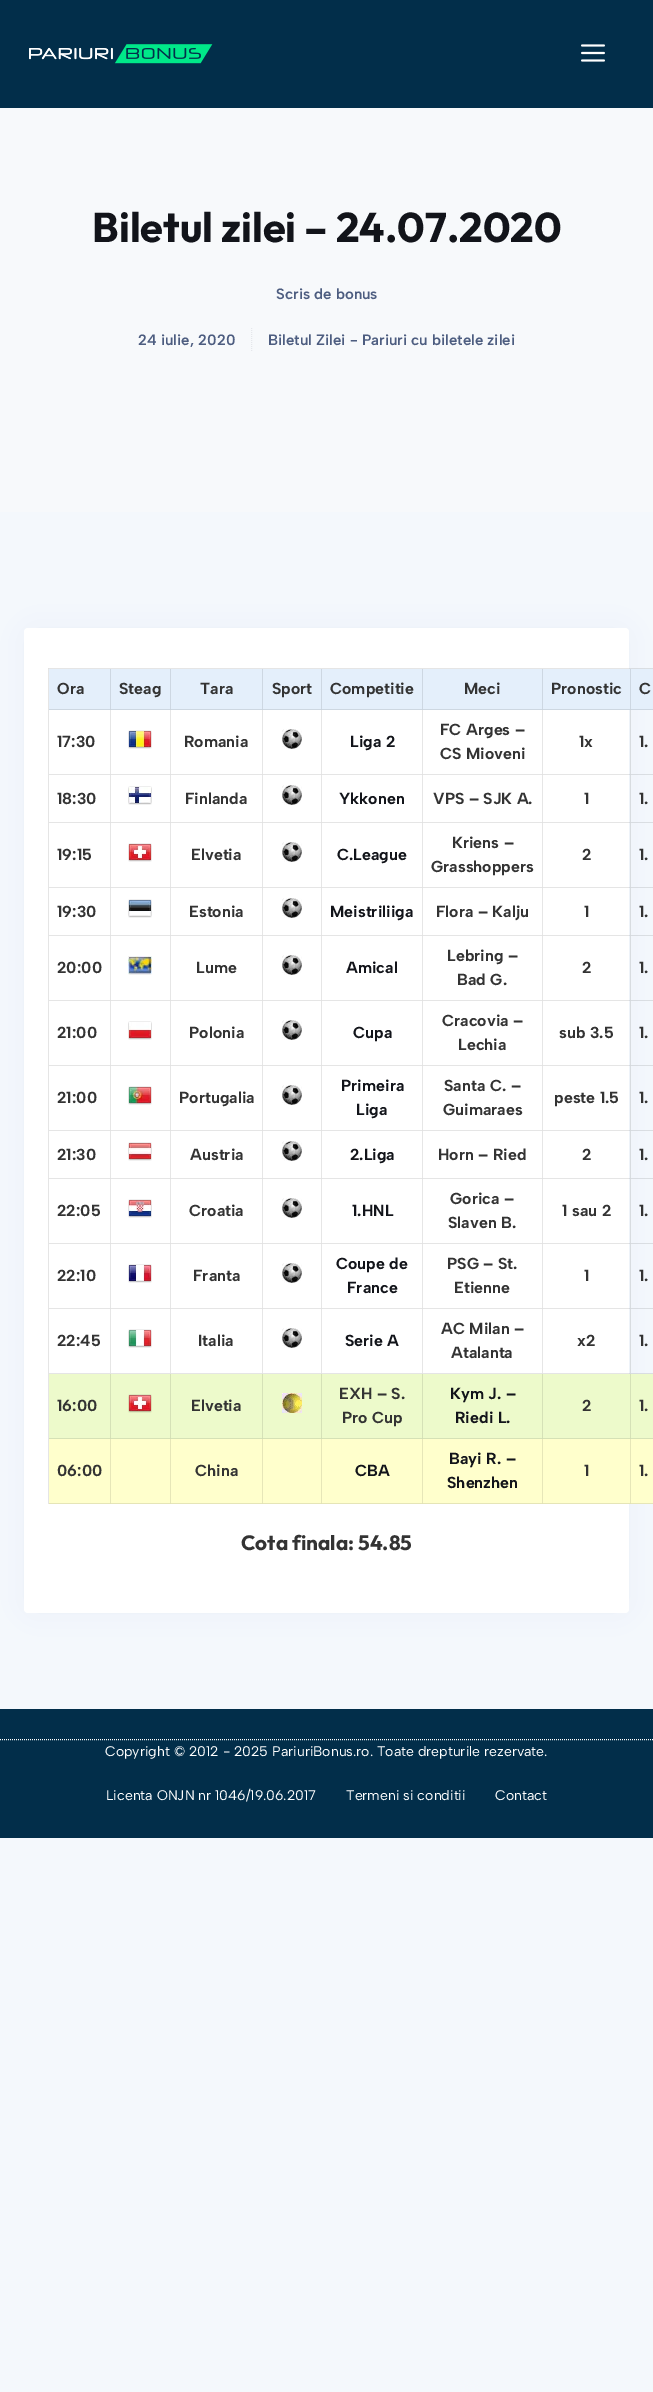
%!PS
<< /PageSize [653 2392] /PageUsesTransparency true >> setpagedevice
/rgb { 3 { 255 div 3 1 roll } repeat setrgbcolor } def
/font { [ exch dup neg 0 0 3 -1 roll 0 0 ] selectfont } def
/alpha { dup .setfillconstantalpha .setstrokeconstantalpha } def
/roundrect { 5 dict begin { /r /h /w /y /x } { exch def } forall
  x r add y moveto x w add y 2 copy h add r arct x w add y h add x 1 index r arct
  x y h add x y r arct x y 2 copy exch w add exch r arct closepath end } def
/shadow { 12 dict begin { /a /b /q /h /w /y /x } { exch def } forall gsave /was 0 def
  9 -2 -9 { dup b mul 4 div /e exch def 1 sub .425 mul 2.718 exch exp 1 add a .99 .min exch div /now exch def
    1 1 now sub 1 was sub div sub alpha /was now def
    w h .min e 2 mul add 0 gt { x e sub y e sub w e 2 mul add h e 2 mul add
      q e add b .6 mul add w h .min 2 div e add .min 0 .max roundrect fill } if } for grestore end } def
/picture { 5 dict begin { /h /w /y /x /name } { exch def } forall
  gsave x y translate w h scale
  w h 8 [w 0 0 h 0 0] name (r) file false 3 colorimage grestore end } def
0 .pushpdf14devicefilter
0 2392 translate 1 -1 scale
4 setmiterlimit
244 248 252 rgb
0 0 653 2392 rectfill
2 46 74 rgb
0 0 653 108 rectfill
(img/1.rgb) 29 44 184 20 picture
(img/2.rgb) 581 44 24 18 picture
247 249 251 rgb
0 108 653 404 rectfill
229 231 235 rgb
[1 1] 0 setdash
251.5 328 moveto 251.5 352 lineto stroke
77 93 128 rgb
34 638 585 965 0 15 0.1 shadow
255 255 255 rgb
24 628 605 985 4 roundrect fill
0.1 alpha
0 0 0 rgb
48 668 moveto 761 668 lineto 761 669 lineto 49 669 lineto closepath fill
48 1504 moveto 48 668 lineto 49 669 lineto 49 1504 lineto closepath fill
1 alpha
228 239 251 rgb
49 669 604 41 rectfill
205 215 226 rgb
111 669 moveto 111 710 lineto 110 709 lineto 110 669 lineto closepath fill
0.1 alpha
0 0 0 rgb
111 710 moveto 49 710 lineto 49 709 lineto 110 709 lineto closepath fill
1 alpha
205 215 226 rgb
171 669 moveto 171 710 lineto 170 709 lineto 170 669 lineto closepath fill
0.1 alpha
0 0 0 rgb
171 710 moveto 111 710 lineto 111 709 lineto 170 709 lineto closepath fill
1 alpha
205 215 226 rgb
263 669 moveto 263 710 lineto 262 709 lineto 262 669 lineto closepath fill
0.1 alpha
0 0 0 rgb
263 710 moveto 171 710 lineto 171 709 lineto 262 709 lineto closepath fill
1 alpha
205 215 226 rgb
322 669 moveto 322 710 lineto 321 709 lineto 321 669 lineto closepath fill
0.1 alpha
0 0 0 rgb
322 710 moveto 263 710 lineto 263 709 lineto 321 709 lineto closepath fill
1 alpha
205 215 226 rgb
423 669 moveto 423 710 lineto 422 709 lineto 422 669 lineto closepath fill
0.1 alpha
0 0 0 rgb
423 710 moveto 322 710 lineto 322 709 lineto 422 709 lineto closepath fill
1 alpha
205 215 226 rgb
543 669 moveto 543 710 lineto 542 709 lineto 542 669 lineto closepath fill
0.1 alpha
0 0 0 rgb
543 710 moveto 423 710 lineto 423 709 lineto 542 709 lineto closepath fill
1 alpha
205 215 226 rgb
631 669 moveto 631 710 lineto 630 709 lineto 630 669 lineto closepath fill
0.1 alpha
0 0 0 rgb
631 710 moveto 543 710 lineto 543 709 lineto 630 709 lineto closepath fill
1 alpha
205 215 226 rgb
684 710 moveto 631 710 lineto 631 709 lineto 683 709 lineto closepath fill
230 230 230 rgb
111 710 moveto 111 775 lineto 110 774 lineto 110 710 lineto closepath fill
0.1 alpha
0 0 0 rgb
111 775 moveto 49 775 lineto 49 774 lineto 110 774 lineto closepath fill
1 alpha
230 230 230 rgb
171 710 moveto 171 775 lineto 170 774 lineto 170 710 lineto closepath fill
0.1 alpha
0 0 0 rgb
171 775 moveto 111 775 lineto 111 774 lineto 170 774 lineto closepath fill
1 alpha
(img/3.rgb) 128 730 24 19 picture
230 230 230 rgb
263 710 moveto 263 775 lineto 262 774 lineto 262 710 lineto closepath fill
0.1 alpha
0 0 0 rgb
263 775 moveto 171 775 lineto 171 774 lineto 262 774 lineto closepath fill
1 alpha
230 230 230 rgb
322 710 moveto 322 775 lineto 321 774 lineto 321 710 lineto closepath fill
0.1 alpha
0 0 0 rgb
322 775 moveto 263 775 lineto 263 774 lineto 321 774 lineto closepath fill
1 alpha
(img/4.rgb) 282 729 20 20 picture
230 230 230 rgb
423 710 moveto 423 775 lineto 422 774 lineto 422 710 lineto closepath fill
0.1 alpha
0 0 0 rgb
423 775 moveto 322 775 lineto 322 774 lineto 422 774 lineto closepath fill
1 alpha
230 230 230 rgb
543 710 moveto 543 775 lineto 542 774 lineto 542 710 lineto closepath fill
0.1 alpha
0 0 0 rgb
543 775 moveto 423 775 lineto 423 774 lineto 542 774 lineto closepath fill
1 alpha
216 220 224 rgb
631 710 moveto 631 775 lineto 630 774 lineto 630 710 lineto closepath fill
0.1 alpha
0 0 0 rgb
631 775 moveto 543 775 lineto 543 774 lineto 630 774 lineto closepath fill
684 775 moveto 631 775 lineto 631 774 lineto 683 774 lineto closepath fill
1 alpha
230 230 230 rgb
111 775 moveto 111 823 lineto 110 822 lineto 110 775 lineto closepath fill
0.1 alpha
0 0 0 rgb
111 823 moveto 49 823 lineto 49 822 lineto 110 822 lineto closepath fill
1 alpha
230 230 230 rgb
171 775 moveto 171 823 lineto 170 822 lineto 170 775 lineto closepath fill
0.1 alpha
0 0 0 rgb
171 823 moveto 111 823 lineto 111 822 lineto 170 822 lineto closepath fill
1 alpha
(img/5.rgb) 128 786 24 19 picture
230 230 230 rgb
263 775 moveto 263 823 lineto 262 822 lineto 262 775 lineto closepath fill
0.1 alpha
0 0 0 rgb
263 823 moveto 171 823 lineto 171 822 lineto 262 822 lineto closepath fill
1 alpha
230 230 230 rgb
322 775 moveto 322 823 lineto 321 822 lineto 321 775 lineto closepath fill
0.1 alpha
0 0 0 rgb
322 823 moveto 263 823 lineto 263 822 lineto 321 822 lineto closepath fill
1 alpha
(img/4.rgb) 282 785 20 20 picture
230 230 230 rgb
423 775 moveto 423 823 lineto 422 822 lineto 422 775 lineto closepath fill
0.1 alpha
0 0 0 rgb
423 823 moveto 322 823 lineto 322 822 lineto 422 822 lineto closepath fill
1 alpha
230 230 230 rgb
543 775 moveto 543 823 lineto 542 822 lineto 542 775 lineto closepath fill
0.1 alpha
0 0 0 rgb
543 823 moveto 423 823 lineto 423 822 lineto 542 822 lineto closepath fill
1 alpha
216 220 224 rgb
631 775 moveto 631 823 lineto 630 822 lineto 630 775 lineto closepath fill
0.1 alpha
0 0 0 rgb
631 823 moveto 543 823 lineto 543 822 lineto 630 822 lineto closepath fill
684 823 moveto 631 823 lineto 631 822 lineto 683 822 lineto closepath fill
1 alpha
230 230 230 rgb
111 823 moveto 111 888 lineto 110 887 lineto 110 823 lineto closepath fill
0.1 alpha
0 0 0 rgb
111 888 moveto 49 888 lineto 49 887 lineto 110 887 lineto closepath fill
1 alpha
230 230 230 rgb
171 823 moveto 171 888 lineto 170 887 lineto 170 823 lineto closepath fill
0.1 alpha
0 0 0 rgb
171 888 moveto 111 888 lineto 111 887 lineto 170 887 lineto closepath fill
1 alpha
(img/6.rgb) 128 843 24 19 picture
230 230 230 rgb
263 823 moveto 263 888 lineto 262 887 lineto 262 823 lineto closepath fill
0.1 alpha
0 0 0 rgb
263 888 moveto 171 888 lineto 171 887 lineto 262 887 lineto closepath fill
1 alpha
230 230 230 rgb
322 823 moveto 322 888 lineto 321 887 lineto 321 823 lineto closepath fill
0.1 alpha
0 0 0 rgb
322 888 moveto 263 888 lineto 263 887 lineto 321 887 lineto closepath fill
1 alpha
(img/4.rgb) 282 842 20 20 picture
230 230 230 rgb
423 823 moveto 423 888 lineto 422 887 lineto 422 823 lineto closepath fill
0.1 alpha
0 0 0 rgb
423 888 moveto 322 888 lineto 322 887 lineto 422 887 lineto closepath fill
1 alpha
230 230 230 rgb
543 823 moveto 543 888 lineto 542 887 lineto 542 823 lineto closepath fill
0.1 alpha
0 0 0 rgb
543 888 moveto 423 888 lineto 423 887 lineto 542 887 lineto closepath fill
1 alpha
216 220 224 rgb
631 823 moveto 631 888 lineto 630 887 lineto 630 823 lineto closepath fill
0.1 alpha
0 0 0 rgb
631 888 moveto 543 888 lineto 543 887 lineto 630 887 lineto closepath fill
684 888 moveto 631 888 lineto 631 887 lineto 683 887 lineto closepath fill
1 alpha
230 230 230 rgb
111 888 moveto 111 936 lineto 110 935 lineto 110 888 lineto closepath fill
0.1 alpha
0 0 0 rgb
111 936 moveto 49 936 lineto 49 935 lineto 110 935 lineto closepath fill
1 alpha
230 230 230 rgb
171 888 moveto 171 936 lineto 170 935 lineto 170 888 lineto closepath fill
0.1 alpha
0 0 0 rgb
171 936 moveto 111 936 lineto 111 935 lineto 170 935 lineto closepath fill
1 alpha
(img/7.rgb) 128 899 24 19 picture
230 230 230 rgb
263 888 moveto 263 936 lineto 262 935 lineto 262 888 lineto closepath fill
0.1 alpha
0 0 0 rgb
263 936 moveto 171 936 lineto 171 935 lineto 262 935 lineto closepath fill
1 alpha
230 230 230 rgb
322 888 moveto 322 936 lineto 321 935 lineto 321 888 lineto closepath fill
0.1 alpha
0 0 0 rgb
322 936 moveto 263 936 lineto 263 935 lineto 321 935 lineto closepath fill
1 alpha
(img/4.rgb) 282 898 20 20 picture
230 230 230 rgb
423 888 moveto 423 936 lineto 422 935 lineto 422 888 lineto closepath fill
0.1 alpha
0 0 0 rgb
423 936 moveto 322 936 lineto 322 935 lineto 422 935 lineto closepath fill
1 alpha
230 230 230 rgb
543 888 moveto 543 936 lineto 542 935 lineto 542 888 lineto closepath fill
0.1 alpha
0 0 0 rgb
543 936 moveto 423 936 lineto 423 935 lineto 542 935 lineto closepath fill
1 alpha
216 220 224 rgb
631 888 moveto 631 936 lineto 630 935 lineto 630 888 lineto closepath fill
0.1 alpha
0 0 0 rgb
631 936 moveto 543 936 lineto 543 935 lineto 630 935 lineto closepath fill
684 936 moveto 631 936 lineto 631 935 lineto 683 935 lineto closepath fill
1 alpha
230 230 230 rgb
111 936 moveto 111 1001 lineto 110 1000 lineto 110 936 lineto closepath fill
0.1 alpha
0 0 0 rgb
111 1001 moveto 49 1001 lineto 49 1000 lineto 110 1000 lineto closepath fill
1 alpha
230 230 230 rgb
171 936 moveto 171 1001 lineto 170 1000 lineto 170 936 lineto closepath fill
0.1 alpha
0 0 0 rgb
171 1001 moveto 111 1001 lineto 111 1000 lineto 170 1000 lineto closepath fill
1 alpha
(img/8.rgb) 128 956 24 19 picture
230 230 230 rgb
263 936 moveto 263 1001 lineto 262 1000 lineto 262 936 lineto closepath fill
0.1 alpha
0 0 0 rgb
263 1001 moveto 171 1001 lineto 171 1000 lineto 262 1000 lineto closepath fill
1 alpha
230 230 230 rgb
322 936 moveto 322 1001 lineto 321 1000 lineto 321 936 lineto closepath fill
0.1 alpha
0 0 0 rgb
322 1001 moveto 263 1001 lineto 263 1000 lineto 321 1000 lineto closepath fill
1 alpha
(img/4.rgb) 282 955 20 20 picture
230 230 230 rgb
423 936 moveto 423 1001 lineto 422 1000 lineto 422 936 lineto closepath fill
0.1 alpha
0 0 0 rgb
423 1001 moveto 322 1001 lineto 322 1000 lineto 422 1000 lineto closepath fill
1 alpha
230 230 230 rgb
543 936 moveto 543 1001 lineto 542 1000 lineto 542 936 lineto closepath fill
0.1 alpha
0 0 0 rgb
543 1001 moveto 423 1001 lineto 423 1000 lineto 542 1000 lineto closepath fill
1 alpha
216 220 224 rgb
631 936 moveto 631 1001 lineto 630 1000 lineto 630 936 lineto closepath fill
0.1 alpha
0 0 0 rgb
631 1001 moveto 543 1001 lineto 543 1000 lineto 630 1000 lineto closepath fill
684 1001 moveto 631 1001 lineto 631 1000 lineto 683 1000 lineto closepath fill
1 alpha
230 230 230 rgb
111 1001 moveto 111 1066 lineto 110 1065 lineto 110 1001 lineto closepath fill
0.1 alpha
0 0 0 rgb
111 1066 moveto 49 1066 lineto 49 1065 lineto 110 1065 lineto closepath fill
1 alpha
230 230 230 rgb
171 1001 moveto 171 1066 lineto 170 1065 lineto 170 1001 lineto closepath fill
0.1 alpha
0 0 0 rgb
171 1066 moveto 111 1066 lineto 111 1065 lineto 170 1065 lineto closepath fill
1 alpha
(img/9.rgb) 128 1021 24 19 picture
230 230 230 rgb
263 1001 moveto 263 1066 lineto 262 1065 lineto 262 1001 lineto closepath fill
0.1 alpha
0 0 0 rgb
263 1066 moveto 171 1066 lineto 171 1065 lineto 262 1065 lineto closepath fill
1 alpha
230 230 230 rgb
322 1001 moveto 322 1066 lineto 321 1065 lineto 321 1001 lineto closepath fill
0.1 alpha
0 0 0 rgb
322 1066 moveto 263 1066 lineto 263 1065 lineto 321 1065 lineto closepath fill
1 alpha
(img/4.rgb) 282 1020 20 20 picture
230 230 230 rgb
423 1001 moveto 423 1066 lineto 422 1065 lineto 422 1001 lineto closepath fill
0.1 alpha
0 0 0 rgb
423 1066 moveto 322 1066 lineto 322 1065 lineto 422 1065 lineto closepath fill
1 alpha
230 230 230 rgb
543 1001 moveto 543 1066 lineto 542 1065 lineto 542 1001 lineto closepath fill
0.1 alpha
0 0 0 rgb
543 1066 moveto 423 1066 lineto 423 1065 lineto 542 1065 lineto closepath fill
1 alpha
216 220 224 rgb
631 1001 moveto 631 1066 lineto 630 1065 lineto 630 1001 lineto closepath fill
0.1 alpha
0 0 0 rgb
631 1066 moveto 543 1066 lineto 543 1065 lineto 630 1065 lineto closepath fill
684 1066 moveto 631 1066 lineto 631 1065 lineto 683 1065 lineto closepath fill
1 alpha
230 230 230 rgb
111 1066 moveto 111 1131 lineto 110 1130 lineto 110 1066 lineto closepath fill
0.1 alpha
0 0 0 rgb
111 1131 moveto 49 1131 lineto 49 1130 lineto 110 1130 lineto closepath fill
1 alpha
230 230 230 rgb
171 1066 moveto 171 1131 lineto 170 1130 lineto 170 1066 lineto closepath fill
0.1 alpha
0 0 0 rgb
171 1131 moveto 111 1131 lineto 111 1130 lineto 170 1130 lineto closepath fill
1 alpha
(img/10.rgb) 128 1086 24 19 picture
230 230 230 rgb
263 1066 moveto 263 1131 lineto 262 1130 lineto 262 1066 lineto closepath fill
0.1 alpha
0 0 0 rgb
263 1131 moveto 171 1131 lineto 171 1130 lineto 262 1130 lineto closepath fill
1 alpha
230 230 230 rgb
322 1066 moveto 322 1131 lineto 321 1130 lineto 321 1066 lineto closepath fill
0.1 alpha
0 0 0 rgb
322 1131 moveto 263 1131 lineto 263 1130 lineto 321 1130 lineto closepath fill
1 alpha
(img/4.rgb) 282 1085 20 20 picture
230 230 230 rgb
423 1066 moveto 423 1131 lineto 422 1130 lineto 422 1066 lineto closepath fill
0.1 alpha
0 0 0 rgb
423 1131 moveto 322 1131 lineto 322 1130 lineto 422 1130 lineto closepath fill
1 alpha
230 230 230 rgb
543 1066 moveto 543 1131 lineto 542 1130 lineto 542 1066 lineto closepath fill
0.1 alpha
0 0 0 rgb
543 1131 moveto 423 1131 lineto 423 1130 lineto 542 1130 lineto closepath fill
1 alpha
216 220 224 rgb
631 1066 moveto 631 1131 lineto 630 1130 lineto 630 1066 lineto closepath fill
0.1 alpha
0 0 0 rgb
631 1131 moveto 543 1131 lineto 543 1130 lineto 630 1130 lineto closepath fill
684 1131 moveto 631 1131 lineto 631 1130 lineto 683 1130 lineto closepath fill
1 alpha
230 230 230 rgb
111 1131 moveto 111 1179 lineto 110 1178 lineto 110 1131 lineto closepath fill
0.1 alpha
0 0 0 rgb
111 1179 moveto 49 1179 lineto 49 1178 lineto 110 1178 lineto closepath fill
1 alpha
230 230 230 rgb
171 1131 moveto 171 1179 lineto 170 1178 lineto 170 1131 lineto closepath fill
0.1 alpha
0 0 0 rgb
171 1179 moveto 111 1179 lineto 111 1178 lineto 170 1178 lineto closepath fill
1 alpha
(img/11.rgb) 128 1142 24 19 picture
230 230 230 rgb
263 1131 moveto 263 1179 lineto 262 1178 lineto 262 1131 lineto closepath fill
0.1 alpha
0 0 0 rgb
263 1179 moveto 171 1179 lineto 171 1178 lineto 262 1178 lineto closepath fill
1 alpha
230 230 230 rgb
322 1131 moveto 322 1179 lineto 321 1178 lineto 321 1131 lineto closepath fill
0.1 alpha
0 0 0 rgb
322 1179 moveto 263 1179 lineto 263 1178 lineto 321 1178 lineto closepath fill
1 alpha
(img/4.rgb) 282 1141 20 20 picture
230 230 230 rgb
423 1131 moveto 423 1179 lineto 422 1178 lineto 422 1131 lineto closepath fill
0.1 alpha
0 0 0 rgb
423 1179 moveto 322 1179 lineto 322 1178 lineto 422 1178 lineto closepath fill
1 alpha
230 230 230 rgb
543 1131 moveto 543 1179 lineto 542 1178 lineto 542 1131 lineto closepath fill
0.1 alpha
0 0 0 rgb
543 1179 moveto 423 1179 lineto 423 1178 lineto 542 1178 lineto closepath fill
1 alpha
216 220 224 rgb
631 1131 moveto 631 1179 lineto 630 1178 lineto 630 1131 lineto closepath fill
0.1 alpha
0 0 0 rgb
631 1179 moveto 543 1179 lineto 543 1178 lineto 630 1178 lineto closepath fill
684 1179 moveto 631 1179 lineto 631 1178 lineto 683 1178 lineto closepath fill
1 alpha
230 230 230 rgb
111 1179 moveto 111 1244 lineto 110 1243 lineto 110 1179 lineto closepath fill
0.1 alpha
0 0 0 rgb
111 1244 moveto 49 1244 lineto 49 1243 lineto 110 1243 lineto closepath fill
1 alpha
230 230 230 rgb
171 1179 moveto 171 1244 lineto 170 1243 lineto 170 1179 lineto closepath fill
0.1 alpha
0 0 0 rgb
171 1244 moveto 111 1244 lineto 111 1243 lineto 170 1243 lineto closepath fill
1 alpha
(img/12.rgb) 128 1199 24 19 picture
230 230 230 rgb
263 1179 moveto 263 1244 lineto 262 1243 lineto 262 1179 lineto closepath fill
0.1 alpha
0 0 0 rgb
263 1244 moveto 171 1244 lineto 171 1243 lineto 262 1243 lineto closepath fill
1 alpha
230 230 230 rgb
322 1179 moveto 322 1244 lineto 321 1243 lineto 321 1179 lineto closepath fill
0.1 alpha
0 0 0 rgb
322 1244 moveto 263 1244 lineto 263 1243 lineto 321 1243 lineto closepath fill
1 alpha
(img/4.rgb) 282 1198 20 20 picture
230 230 230 rgb
423 1179 moveto 423 1244 lineto 422 1243 lineto 422 1179 lineto closepath fill
0.1 alpha
0 0 0 rgb
423 1244 moveto 322 1244 lineto 322 1243 lineto 422 1243 lineto closepath fill
1 alpha
230 230 230 rgb
543 1179 moveto 543 1244 lineto 542 1243 lineto 542 1179 lineto closepath fill
0.1 alpha
0 0 0 rgb
543 1244 moveto 423 1244 lineto 423 1243 lineto 542 1243 lineto closepath fill
1 alpha
216 220 224 rgb
631 1179 moveto 631 1244 lineto 630 1243 lineto 630 1179 lineto closepath fill
0.1 alpha
0 0 0 rgb
631 1244 moveto 543 1244 lineto 543 1243 lineto 630 1243 lineto closepath fill
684 1244 moveto 631 1244 lineto 631 1243 lineto 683 1243 lineto closepath fill
1 alpha
230 230 230 rgb
111 1244 moveto 111 1309 lineto 110 1308 lineto 110 1244 lineto closepath fill
0.1 alpha
0 0 0 rgb
111 1309 moveto 49 1309 lineto 49 1308 lineto 110 1308 lineto closepath fill
1 alpha
230 230 230 rgb
171 1244 moveto 171 1309 lineto 170 1308 lineto 170 1244 lineto closepath fill
0.1 alpha
0 0 0 rgb
171 1309 moveto 111 1309 lineto 111 1308 lineto 170 1308 lineto closepath fill
1 alpha
(img/13.rgb) 128 1264 24 19 picture
230 230 230 rgb
263 1244 moveto 263 1309 lineto 262 1308 lineto 262 1244 lineto closepath fill
0.1 alpha
0 0 0 rgb
263 1309 moveto 171 1309 lineto 171 1308 lineto 262 1308 lineto closepath fill
1 alpha
230 230 230 rgb
322 1244 moveto 322 1309 lineto 321 1308 lineto 321 1244 lineto closepath fill
0.1 alpha
0 0 0 rgb
322 1309 moveto 263 1309 lineto 263 1308 lineto 321 1308 lineto closepath fill
1 alpha
(img/4.rgb) 282 1263 20 20 picture
230 230 230 rgb
423 1244 moveto 423 1309 lineto 422 1308 lineto 422 1244 lineto closepath fill
0.1 alpha
0 0 0 rgb
423 1309 moveto 322 1309 lineto 322 1308 lineto 422 1308 lineto closepath fill
1 alpha
230 230 230 rgb
543 1244 moveto 543 1309 lineto 542 1308 lineto 542 1244 lineto closepath fill
0.1 alpha
0 0 0 rgb
543 1309 moveto 423 1309 lineto 423 1308 lineto 542 1308 lineto closepath fill
1 alpha
216 220 224 rgb
631 1244 moveto 631 1309 lineto 630 1308 lineto 630 1244 lineto closepath fill
0.1 alpha
0 0 0 rgb
631 1309 moveto 543 1309 lineto 543 1308 lineto 630 1308 lineto closepath fill
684 1309 moveto 631 1309 lineto 631 1308 lineto 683 1308 lineto closepath fill
1 alpha
230 230 230 rgb
111 1309 moveto 111 1374 lineto 110 1373 lineto 110 1309 lineto closepath fill
0.1 alpha
0 0 0 rgb
111 1374 moveto 49 1374 lineto 49 1373 lineto 110 1373 lineto closepath fill
1 alpha
230 230 230 rgb
171 1309 moveto 171 1374 lineto 170 1373 lineto 170 1309 lineto closepath fill
0.1 alpha
0 0 0 rgb
171 1374 moveto 111 1374 lineto 111 1373 lineto 170 1373 lineto closepath fill
1 alpha
(img/14.rgb) 128 1329 24 19 picture
230 230 230 rgb
263 1309 moveto 263 1374 lineto 262 1373 lineto 262 1309 lineto closepath fill
0.1 alpha
0 0 0 rgb
263 1374 moveto 171 1374 lineto 171 1373 lineto 262 1373 lineto closepath fill
1 alpha
230 230 230 rgb
322 1309 moveto 322 1374 lineto 321 1373 lineto 321 1309 lineto closepath fill
0.1 alpha
0 0 0 rgb
322 1374 moveto 263 1374 lineto 263 1373 lineto 321 1373 lineto closepath fill
1 alpha
(img/4.rgb) 282 1328 20 20 picture
230 230 230 rgb
423 1309 moveto 423 1374 lineto 422 1373 lineto 422 1309 lineto closepath fill
0.1 alpha
0 0 0 rgb
423 1374 moveto 322 1374 lineto 322 1373 lineto 422 1373 lineto closepath fill
1 alpha
230 230 230 rgb
543 1309 moveto 543 1374 lineto 542 1373 lineto 542 1309 lineto closepath fill
0.1 alpha
0 0 0 rgb
543 1374 moveto 423 1374 lineto 423 1373 lineto 542 1373 lineto closepath fill
1 alpha
216 220 224 rgb
631 1309 moveto 631 1374 lineto 630 1373 lineto 630 1309 lineto closepath fill
0.1 alpha
0 0 0 rgb
631 1374 moveto 543 1374 lineto 543 1373 lineto 630 1373 lineto closepath fill
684 1374 moveto 631 1374 lineto 631 1373 lineto 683 1373 lineto closepath fill
1 alpha
237 250 203 rgb
49 1374 604 65 rectfill
213 225 183 rgb
111 1374 moveto 111 1439 lineto 110 1438 lineto 110 1374 lineto closepath fill
0.1 alpha
0 0 0 rgb
111 1439 moveto 49 1439 lineto 49 1438 lineto 110 1438 lineto closepath fill
1 alpha
213 225 183 rgb
171 1374 moveto 171 1439 lineto 170 1438 lineto 170 1374 lineto closepath fill
0.1 alpha
0 0 0 rgb
171 1439 moveto 111 1439 lineto 111 1438 lineto 170 1438 lineto closepath fill
1 alpha
(img/15.rgb) 128 1394 24 19 picture
213 225 183 rgb
263 1374 moveto 263 1439 lineto 262 1438 lineto 262 1374 lineto closepath fill
0.1 alpha
0 0 0 rgb
263 1439 moveto 171 1439 lineto 171 1438 lineto 262 1438 lineto closepath fill
1 alpha
213 225 183 rgb
322 1374 moveto 322 1439 lineto 321 1438 lineto 321 1374 lineto closepath fill
0.1 alpha
0 0 0 rgb
322 1439 moveto 263 1439 lineto 263 1438 lineto 321 1438 lineto closepath fill
1 alpha
(img/16.rgb) 282 1393 20 20 picture
213 225 183 rgb
423 1374 moveto 423 1439 lineto 422 1438 lineto 422 1374 lineto closepath fill
0.1 alpha
0 0 0 rgb
423 1439 moveto 322 1439 lineto 322 1438 lineto 422 1438 lineto closepath fill
1 alpha
213 225 183 rgb
543 1374 moveto 543 1439 lineto 542 1438 lineto 542 1374 lineto closepath fill
0.1 alpha
0 0 0 rgb
543 1439 moveto 423 1439 lineto 423 1438 lineto 542 1438 lineto closepath fill
1 alpha
213 225 183 rgb
631 1374 moveto 631 1439 lineto 630 1438 lineto 630 1374 lineto closepath fill
0.1 alpha
0 0 0 rgb
631 1439 moveto 543 1439 lineto 543 1438 lineto 630 1438 lineto closepath fill
1 alpha
213 225 183 rgb
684 1439 moveto 631 1439 lineto 631 1438 lineto 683 1438 lineto closepath fill
255 255 204 rgb
49 1439 604 65 rectfill
230 230 184 rgb
111 1439 moveto 111 1504 lineto 110 1503 lineto 110 1439 lineto closepath fill
0.1 alpha
0 0 0 rgb
111 1504 moveto 49 1504 lineto 49 1503 lineto 110 1503 lineto closepath fill
1 alpha
230 230 184 rgb
171 1439 moveto 171 1504 lineto 170 1503 lineto 170 1439 lineto closepath fill
0.1 alpha
0 0 0 rgb
171 1504 moveto 111 1504 lineto 111 1503 lineto 170 1503 lineto closepath fill
1 alpha
230 230 184 rgb
263 1439 moveto 263 1504 lineto 262 1503 lineto 262 1439 lineto closepath fill
0.1 alpha
0 0 0 rgb
263 1504 moveto 171 1504 lineto 171 1503 lineto 262 1503 lineto closepath fill
1 alpha
230 230 184 rgb
322 1439 moveto 322 1504 lineto 321 1503 lineto 321 1439 lineto closepath fill
0.1 alpha
0 0 0 rgb
322 1504 moveto 263 1504 lineto 263 1503 lineto 321 1503 lineto closepath fill
1 alpha
230 230 184 rgb
423 1439 moveto 423 1504 lineto 422 1503 lineto 422 1439 lineto closepath fill
0.1 alpha
0 0 0 rgb
423 1504 moveto 322 1504 lineto 322 1503 lineto 422 1503 lineto closepath fill
1 alpha
230 230 184 rgb
543 1439 moveto 543 1504 lineto 542 1503 lineto 542 1439 lineto closepath fill
0.1 alpha
0 0 0 rgb
543 1504 moveto 423 1504 lineto 423 1503 lineto 542 1503 lineto closepath fill
1 alpha
230 230 184 rgb
631 1439 moveto 631 1504 lineto 630 1503 lineto 630 1439 lineto closepath fill
0.1 alpha
0 0 0 rgb
631 1504 moveto 543 1504 lineto 543 1503 lineto 630 1503 lineto closepath fill
1 alpha
230 230 184 rgb
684 1504 moveto 631 1504 lineto 631 1503 lineto 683 1503 lineto closepath fill
2 46 74 rgb
0 1709 653 129 rectfill
255 255 255 rgb
0 1739.5 moveto 653 1739.5 lineto stroke
/Outfit-Bold 41.6 font
18 20 26 rgb
92 242 moveto (Biletul zilei – 24.07.2020) show
/AlbertSans-SemiBold 15 font
77 93 128 rgb
[
  [(Scris de bonus) 276 299]
  [(24 iulie, 2020) 138 345]
  [(Biletul Zilei - Pariuri cu biletele zilei) 268 345]
] { aload pop moveto show } forall
/AlbertSans-Bold 16 font
51 51 51 rgb
[
  [(Ora) 57 694]
  [(Steag) 119 694]
  [(Tara) 200 694]
  [(Sport) 272 694]
  [(Competitie) 330 694]
  [(Meci) 464 694]
  [(Pronostic) 551 694]
  [(C) 639 694]
  [(17:30) 57 747]
  [(Romania) 184 747]
] { aload pop moveto show } forall
18 20 26 rgb
350 747 moveto (Liga 2) show
51 51 51 rgb
[
  [(FC Arges –) 440 735]
  [(CS Mioveni) 440 759]
  [(1x) 579 747]
  [(1.) 639 747]
  [(18:30) 57 804]
  [(Finlanda) 185 804]
] { aload pop moveto show } forall
18 20 26 rgb
339 804 moveto (Ykkonen) show
51 51 51 rgb
[
  [(VPS – SJK A.) 433 804]
  [(1) 584 804]
  [(1.) 639 804]
  [(19:15) 57 860]
  [(Elvetia) 191 860]
] { aload pop moveto show } forall
18 20 26 rgb
337 860 moveto (C.League) show
51 51 51 rgb
[
  [(Kriens –) 452 848]
  [(Grasshoppers) 431 872]
  [(2) 582 860]
  [(1.) 639 860]
  [(19:30) 57 917]
  [(Estonia) 189 917]
] { aload pop moveto show } forall
18 20 26 rgb
330 917 moveto (Meistriliiga) show
51 51 51 rgb
[
  [(Flora – Kalju) 436 917]
  [(1) 584 917]
  [(1.) 639 917]
  [(20:00) 57 973]
  [(Lume) 196 973]
] { aload pop moveto show } forall
18 20 26 rgb
346 973 moveto (Amical) show
51 51 51 rgb
[
  [(Lebring –) 447 961]
  [(Bad G.) 457 985]
  [(2) 582 973]
  [(1.) 639 973]
  [(21:00) 57 1038]
  [(Polonia) 189 1038]
] { aload pop moveto show } forall
18 20 26 rgb
353 1038 moveto (Cupa) show
51 51 51 rgb
[
  [(Cracovia –) 442 1026]
  [(Lechia) 458 1050]
  [(sub 3.5) 559 1038]
  [(1.) 639 1038]
  [(21:00) 57 1103]
  [(Portugalia) 179 1103]
] { aload pop moveto show } forall
18 20 26 rgb
341 1091 moveto (Primeira) show
356 1115 moveto (Liga) show
51 51 51 rgb
[
  [(Santa C. –) 444 1091]
  [(Guimaraes) 443 1115]
  [(peste 1.5) 554 1103]
  [(1.) 639 1103]
  [(21:30) 57 1160]
  [(Austria) 190 1160]
] { aload pop moveto show } forall
18 20 26 rgb
350 1160 moveto (2.Liga) show
51 51 51 rgb
[
  [(Horn – Ried) 438 1160]
  [(2) 582 1160]
  [(1.) 639 1160]
  [(22:05) 57 1216]
  [(Croatia) 189 1216]
] { aload pop moveto show } forall
18 20 26 rgb
352 1216 moveto (1.HNL) show
51 51 51 rgb
[
  [(Gorica –) 450 1204]
  [(Slaven B.) 448 1228]
  [(1 sau 2) 562 1216]
  [(1.) 639 1216]
  [(22:10) 57 1281]
  [(Franta) 193 1281]
] { aload pop moveto show } forall
18 20 26 rgb
336 1269 moveto (Coupe de) show
347 1293 moveto (France) show
51 51 51 rgb
[
  [(PSG – St.) 447 1269]
  [(Etienne) 454 1293]
  [(1) 584 1281]
  [(1.) 639 1281]
  [(22:45) 57 1346]
  [(Italia) 198 1346]
] { aload pop moveto show } forall
18 20 26 rgb
345 1346 moveto (Serie A) show
51 51 51 rgb
[
  [(AC Milan –) 441 1334]
  [(Atalanta) 451 1358]
  [(x2) 577 1346]
  [(1.) 639 1346]
  [(16:00) 57 1411]
  [(Elvetia) 191 1411]
  [(EXH – S.) 339 1399]
  [(Pro Cup) 342 1423]
] { aload pop moveto show } forall
18 20 26 rgb
450 1399 moveto (Kym J. –) show
455 1423 moveto (Riedi L.) show
51 51 51 rgb
[
  [(2) 582 1411]
  [(1.) 639 1411]
  [(06:00) 57 1476]
  [(China) 195 1476]
] { aload pop moveto show } forall
18 20 26 rgb
[
  [(CBA) 355 1476]
  [(Bayi R. –) 449 1464]
  [(Shenzhen) 447 1488]
] { aload pop moveto show } forall
51 51 51 rgb
584 1476 moveto (1) show
639 1476 moveto (1.) show
/Outfit-Bold 20.75 font
241 1550 moveto (Cota finala: 54.85) show
/AlbertSans-Regular 14 font
255 255 255 rgb
[
  [(Copyright © 2012 - 2025 PariuriBonus.ro. Toate drepturile rezervate.) 105 1756]
  [(Licenta ONJN nr 1046/19.06.2017) 106 1800]
  [(Termeni si conditii) 346 1800]
  [(Contact) 495 1800]
] { aload pop moveto show } forall
.poppdf14devicefilter showpage
